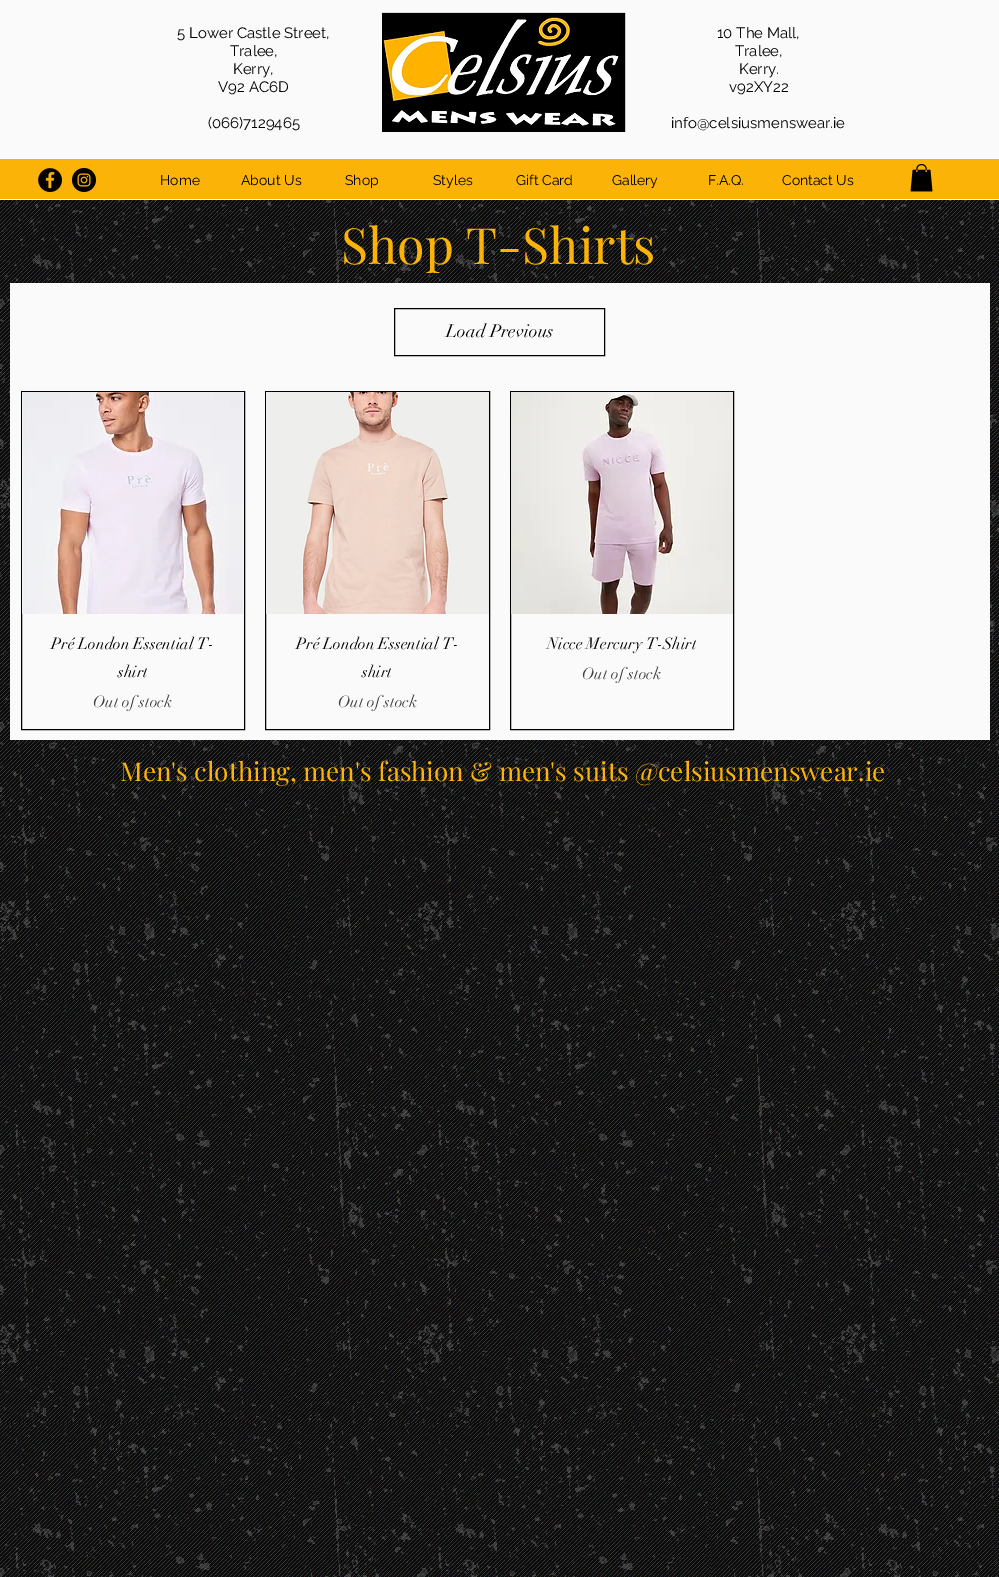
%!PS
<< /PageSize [999 1577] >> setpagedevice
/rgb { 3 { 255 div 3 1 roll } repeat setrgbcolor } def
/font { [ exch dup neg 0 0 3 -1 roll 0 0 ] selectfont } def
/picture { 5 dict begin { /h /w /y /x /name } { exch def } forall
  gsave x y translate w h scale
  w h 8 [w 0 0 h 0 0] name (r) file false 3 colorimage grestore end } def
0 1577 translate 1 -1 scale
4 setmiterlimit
0 0 0 rgb
0 0 999 1577 rectfill
250 250 250 rgb
0 0 999 200 rectfill
(img/1.rgb) 382 12 244 120 picture
250 179 6 rgb
0 159 999 40 rectfill
(img/2.rgb) 38 168 24 24 picture
(img/3.rgb) 72 168 24 24 picture
(img/4.rgb) 910 164 23 28 picture
(img/8.rgb) 0 200 999 1377 picture
250 250 250 rgb
10 283 980 457 rectfill
0 0 0 rgb
394.5 308.5 210 47 rectstroke
21.5 391.5 223 338 rectstroke
(img/5.rgb) 22 392 222 222 picture
265.5 391.5 224 338 rectstroke
(img/6.rgb) 266 392 223 222 picture
510.5 391.5 223 338 rectstroke
(img/7.rgb) 511 392 222 222 picture
/Raleway-Regular 15 font
[
  [(5 Lower Castle Street,) 177 38]
  [(Tralee,) 230 56]
  [(Kerry,) 233 74]
  [(V92 AC6D) 218 92]
  [(\(066\)7129465) 208 128]
  [(10 The Mall,) 717 38]
  [(Tralee,) 735 56]
  [(Kerry.) 739 74]
  [(v92XY22) 729 92]
  [(info@celsiusmenswear.ie) 671 128]
] { aload pop moveto show } forall
/Raleway-Regular 14 font
[
  [(Home) 160 185]
  [(About Us) 241 185]
  [(Shop) 345 185]
  [(Styles) 433 185]
  [(Gift Card) 516 185]
  [(Gallery) 612 185]
  [(F.A.Q.) 708 185]
  [(Contact Us) 782 185]
] { aload pop moveto show } forall
/PlayfairDisplay-Regular 50 font
250 179 6 rgb
341 264 moveto (Shop T-Shirts) show
/didot-Regular 18 font
0 0 0 rgb
446 337 moveto (Load Previous) show
/didot-Regular 16 font
51 649 moveto (Pré London Essential T-) show
118 677 moveto (shirt) show
63 63 63 rgb
93 707 moveto (Out of stock) show
0 0 0 rgb
296 649 moveto (Pré London Essential T-) show
362 677 moveto (shirt) show
63 63 63 rgb
338 707 moveto (Out of stock) show
0 0 0 rgb
547 649 moveto (Nicce Mercury T-Shirt) show
63 63 63 rgb
582 679 moveto (Out of stock) show
/PlayfairDisplay-Regular 26 font
250 179 6 rgb
120 781 moveto (Men's clothing, men's fashion & men's suits @celsiusmenswear.ie) show
showpage
